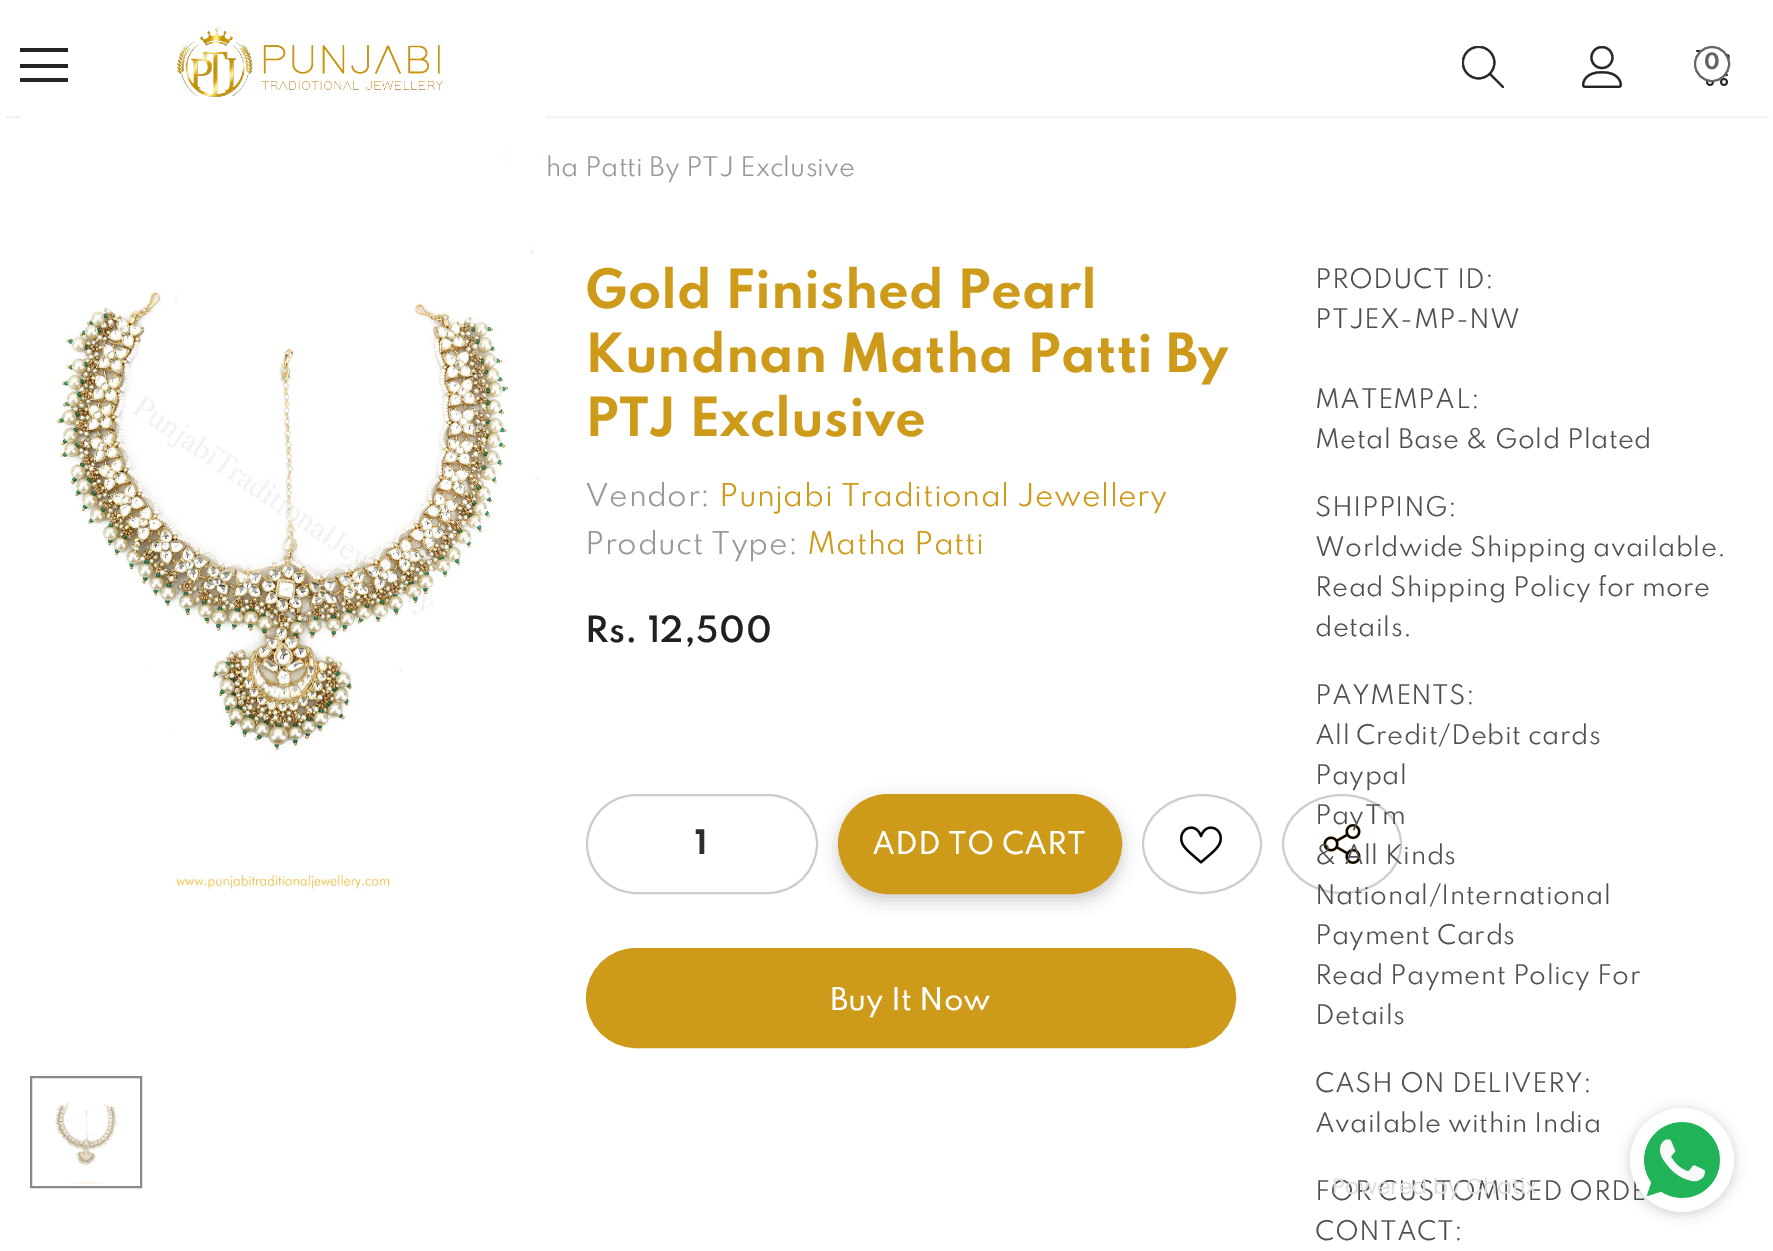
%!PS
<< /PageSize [1773 1251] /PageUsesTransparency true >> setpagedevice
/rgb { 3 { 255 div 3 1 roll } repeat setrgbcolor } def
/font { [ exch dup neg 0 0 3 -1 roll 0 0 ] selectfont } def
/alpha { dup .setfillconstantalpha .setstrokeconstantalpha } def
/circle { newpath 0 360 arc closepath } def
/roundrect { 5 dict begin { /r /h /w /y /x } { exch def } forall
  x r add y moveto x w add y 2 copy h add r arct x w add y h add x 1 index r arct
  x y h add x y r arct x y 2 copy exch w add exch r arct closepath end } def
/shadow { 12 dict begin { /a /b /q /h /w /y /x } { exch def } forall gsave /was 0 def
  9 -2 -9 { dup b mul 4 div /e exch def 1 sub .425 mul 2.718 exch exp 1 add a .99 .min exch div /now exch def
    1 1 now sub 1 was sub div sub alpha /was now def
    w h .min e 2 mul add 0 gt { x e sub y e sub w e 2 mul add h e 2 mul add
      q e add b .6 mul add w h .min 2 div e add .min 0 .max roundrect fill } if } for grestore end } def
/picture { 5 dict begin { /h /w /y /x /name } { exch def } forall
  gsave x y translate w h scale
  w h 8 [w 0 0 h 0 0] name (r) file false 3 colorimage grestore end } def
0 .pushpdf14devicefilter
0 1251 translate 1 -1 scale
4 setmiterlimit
255 255 255 rgb
0 0 1773 1251 rectfill
gsave
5 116 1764 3 rectclip
0 0 0 rgb
6 12 1762 104 0 3 0.12 shadow
grestore
[
  [20 48 48 4 35 35 35]
  [20 64 48 4 35 35 35]
  [20 78 48 4 35 35 35]
] { aload pop rgb rectfill } forall
(img/1.rgb) 177 28 266 69 picture
(img/2.rgb) 1462 46 42 42 picture
(img/3.rgb) 1582 46 41 42 picture
(img/4.rgb) 1696 49 34 37 picture
255 255 255 rgb
1712 64 17 circle gsave fill grestore
100 100 100 rgb
2 setlinewidth
stroke
(img/5.rgb) 20 116 526 776 picture
137 137 137 rgb
31 1077 110 110 rectstroke
(img/6.rgb) 55 1102 62 83 picture
203 203 203 rgb
587 795 230 98 49 roundrect stroke
0 0 0 rgb
838 800 284 100 50 8 0.2 shadow
205 154 26 rgb
839 795 282 98 49 roundrect gsave fill grestore
stroke
205 205 205 rgb
1202 795 moveto 1234.5 795 1261 817 1261 844 curveto 1261 871 1234.5 893 1202 893 curveto 1169.5 893 1143 871 1143 844 curveto 1143 817 1169.5 795 1202 795 curveto closepath stroke
(img/7.rgb) 1180 826 42 38 picture
1342 795 moveto 1374.5 795 1401 817 1401 844 curveto 1401 871 1374.5 893 1342 893 curveto 1309.5 893 1283 871 1283 844 curveto 1283 817 1309.5 795 1342 795 curveto closepath stroke
(img/8.rgb) 1323 824 38 40 picture
205 154 26 rgb
587 949 648 98 49 roundrect gsave fill grestore
stroke
27 27 27 rgb
1630 1110 104 104 52 6 0.2 shadow
/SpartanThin-Bold 20 font
100 100 100 rgb
1704 69 moveto (0) show
/SpartanThin-Regular 24 font
153 153 153 rgb
546 176 moveto (ha Patti By PTJ Exclusive) show
/SpartanThin-Bold 48 font
205 154 26 rgb
[
  [(Gold Finished Pearl) 585 308]
  [(Kundnan Matha Patti By) 585 372]
  [(PTJ Exclusive) 585 436]
] { aload pop moveto show } forall
/SpartanThin-Regular 28 font
153 153 153 rgb
585 506 moveto 0.4 0 (Vendor:) ashow
205 154 26 rgb
719 506 moveto 0.4 0 (Punjabi Traditional Jewellery) ashow
153 153 153 rgb
585 554 moveto 0.4 0 (Product Type:) ashow
205 154 26 rgb
807 554 moveto 0.4 0 (Matha Patti) ashow
/SpartanThin-SemiBold 32 font
32 32 32 rgb
585 642 moveto 0.4 0 (Rs. 12,500) ashow
/SpartanThin-Bold 30 font
45 45 45 rgb
695 854 moveto (1) show
/SpartanThin-Medium 28 font
255 255 255 rgb
872 854 moveto (ADD TO CART) show
830 1010 moveto (Buy It Now) show
/SpartanThin-Regular 24 font
80 80 80 rgb
1315 288 moveto 0.4 0 (PRODUCT ID:) ashow
1315 328 moveto 0.4 0 (PTJEX-MP-NW) ashow
1315 408 moveto 0.4 0 (MATEMPAL:) ashow
1315 448 moveto 0.4 0 (Metal Base & Gold Plated) ashow
1315 516 moveto 0.4 0 (SHIPPING:) ashow
1315 556 moveto 0.4 0 (Worldwide Shipping available.) ashow
1315 596 moveto 0.4 0 (Read Shipping Policy for more) ashow
1315 636 moveto 0.4 0 (details.) ashow
1315 704 moveto 0.4 0 (PAYMENTS:) ashow
1315 744 moveto 0.4 0 (All Credit/Debit cards) ashow
1315 784 moveto 0.4 0 (Paypal) ashow
1315 824 moveto 0.4 0 (PayTm) ashow
1315 864 moveto 0.4 0 (& All Kinds) ashow
1315 904 moveto 0.4 0 (National/International) ashow
1315 944 moveto 0.4 0 (Payment Cards) ashow
1315 984 moveto 0.4 0 (Read Payment Policy For) ashow
1315 1024 moveto 0.4 0 (Details) ashow
1315 1092 moveto 0.4 0 (CASH ON DELIVERY:) ashow
1315 1132 moveto 0.4 0 (Available within India) ashow
1315 1200 moveto 0.4 0 (FOR CUSTOMISED ORDE) ashow
1315 1240 moveto 0.4 0 (CONTACT:) ashow
/Poppins-Regular 22 font
221 221 221 rgb
1332 1194 moveto (Powered by Chatix) show
255 255 255 rgb
1682 1160 51 circle gsave fill grestore
stroke
(img/9.rgb) 1644 1122 76 76 picture
.poppdf14devicefilter showpage
